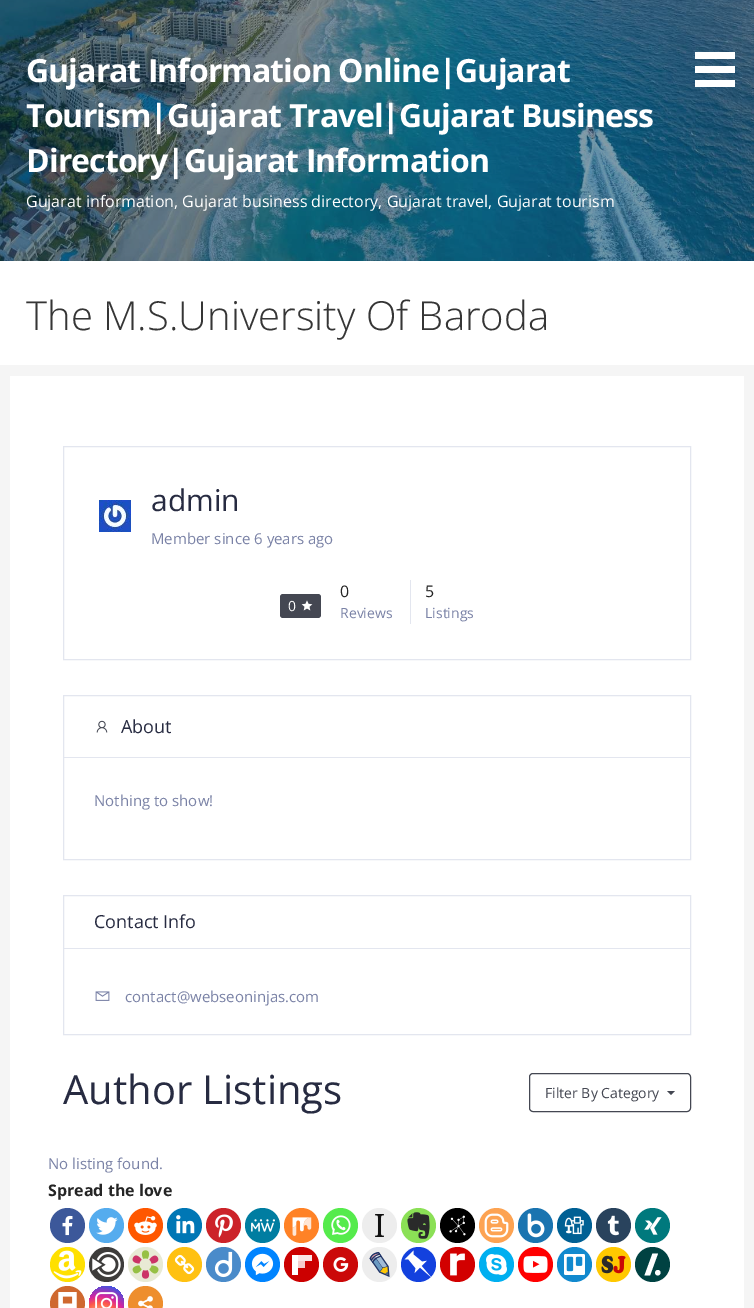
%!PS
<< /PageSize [754 1308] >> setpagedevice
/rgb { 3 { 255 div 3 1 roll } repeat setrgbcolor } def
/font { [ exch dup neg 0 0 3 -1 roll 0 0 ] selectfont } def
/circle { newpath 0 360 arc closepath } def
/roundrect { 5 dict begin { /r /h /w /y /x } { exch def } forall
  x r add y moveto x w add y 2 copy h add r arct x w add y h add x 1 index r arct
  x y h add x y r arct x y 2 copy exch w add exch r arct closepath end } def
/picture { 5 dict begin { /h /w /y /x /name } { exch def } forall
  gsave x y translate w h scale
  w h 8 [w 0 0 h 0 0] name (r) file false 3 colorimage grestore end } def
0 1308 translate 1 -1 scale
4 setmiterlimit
245 245 245 rgb
0 0 754 1308 rectfill
(img/1.rgb) 0 0 754 261 picture
[
  [695 52 40 7 255 255 255]
  [695 66 40 7 255 255 255]
  [695 80 40 7 255 255 255]
  [0 261 754 104 255 255 255]
  [10 376 734 932 255 255 255]
] { aload pop rgb rectfill } forall
227 230 239 rgb
63.5 446.5 627 213 rectstroke
(img/2.rgb) 99 500 32 32 picture
68 71 82 rgb
280 594 41 24 3 roundrect fill
(img/3.rgb) 301 600 12 11 picture
227 230 239 rgb
410 580 1 44 rectfill
63.5 695.5 627 164 rectstroke
64 757 626 1 rectfill
(img/4.rgb) 96 720 12 13 picture
63.5 895.5 627 139 rectstroke
64 948 626 1 rectfill
(img/5.rgb) 95 991 15 10 picture
68 71 82 rgb
529.5 1073.5 161 38 3.5 roundrect stroke
667 1091 moveto 675 1091 lineto 671 1095 lineto closepath fill
60 88 154 rgb
67.5 1225.5 17.5 circle fill
(img/6.rgb) 62 1215 11 21 picture
85 172 238 rgb
106.5 1225.5 17.5 circle fill
(img/7.rgb) 96 1217 22 18 picture
255 87 0 rgb
145.5 1225.5 17.5 circle fill
(img/8.rgb) 134 1216 23 19 picture
0 119 181 rgb
184.5 1225.5 17.5 circle fill
(img/9.rgb) 176 1215 19 19 picture
204 35 41 rgb
223.5 1225.5 17.5 circle fill
(img/10.rgb) 215 1214 18 24 picture
0 125 161 rgb
262.5 1225.5 17.5 circle fill
(img/11.rgb) 251 1219 24 13 picture
255 130 38 rgb
301.5 1225.5 17.5 circle fill
(img/12.rgb) 292 1217 20 19 picture
85 235 76 rgb
340.5 1225.5 17.5 circle fill
(img/13.rgb) 331 1215 20 20 picture
237 237 237 rgb
379.5 1225.5 17.5 circle fill
(img/14.rgb) 375 1214 9 23 picture
139 224 86 rgb
418.5 1225.5 17.5 circle fill
(img/15.rgb) 407 1212 23 27 picture
0 0 0 rgb
457.5 1225.5 17.5 circle fill
(img/16.rgb) 449 1215 17 21 picture
253 163 82 rgb
496.5 1225.5 17.5 circle fill
(img/17.rgb) 484 1213 25 25 picture
26 116 176 rgb
535.5 1225.5 17.5 circle fill
(img/18.rgb) 527 1213 18 25 picture
0 96 148 rgb
574.5 1225.5 17.5 circle fill
(img/19.rgb) 564 1216 20 19 picture
41 67 93 rgb
613.5 1225.5 17.5 circle fill
(img/20.rgb) 607 1215 12 21 picture
0 121 125 rgb
652.5 1225.5 17.5 circle fill
(img/21.rgb) 644 1217 18 18 picture
255 224 0 rgb
67.5 1264.5 17.5 circle fill
(img/22.rgb) 53 1250 29 29 picture
61 60 59 rgb
106.5 1264.5 17.5 circle fill
(img/23.rgb) 92 1252 29 25 picture
232 234 212 rgb
145.5 1264.5 17.5 circle fill
(img/24.rgb) 132 1250 27 29 picture
255 193 18 rgb
184.5 1264.5 17.5 circle fill
(img/25.rgb) 174 1254 21 21 picture
74 139 202 rgb
223.5 1264.5 17.5 circle fill
(img/26.rgb) 214 1251 19 27 picture
0 132 255 rgb
262.5 1264.5 17.5 circle fill
(img/27.rgb) 251 1253 23 23 picture
204 0 0 rgb
301.5 1264.5 17.5 circle fill
[
  [298 1261 7 7 245 204 204]
  [292 1255 20 6 250 229 229]
  [292 1255 6 20 255 255 255]
] { aload pop rgb rectfill } forall
203 9 9 rgb
340.5 1264.5 17.5 circle fill
(img/28.rgb) 333 1257 16 15 picture
237 237 237 rgb
379.5 1264.5 17.5 circle fill
(img/29.rgb) 369 1251 21 26 picture
19 65 222 rgb
418.5 1264.5 17.5 circle fill
(img/30.rgb) 404 1250 27 27 picture
210 0 0 rgb
457.5 1264.5 17.5 circle fill
(img/31.rgb) 450 1253 15 23 picture
0 175 240 rgb
496.5 1264.5 17.5 circle fill
(img/32.rgb) 486 1254 21 21 picture
255 0 0 rgb
535.5 1264.5 17.5 circle fill
(img/33.rgb) 523 1256 25 17 picture
17 137 206 rgb
574.5 1264.5 17.5 circle fill
(img/34.rgb) 564 1254 21 21 picture
255 200 0 rgb
613.5 1264.5 17.5 circle fill
(img/35.rgb) 601 1255 25 19 picture
0 66 66 rgb
652.5 1264.5 17.5 circle fill
255 255 255 rgb
658 1253.5 moveto 652.5 1253.5 lineto 644.5 1275.5 lineto 650 1275.5 lineto fill
657.8 1272.7 2.7 circle fill
207 104 47 rgb
67.5 1303.5 17.5 circle fill
(img/36.rgb) 58 1292 19 16 picture
gsave 106.5 1303.5 17.5 circle clip newpath 100 1323 translate 45 45 scale
<< /ShadingType 3 /ColorSpace /DeviceRGB /Coords [0 0 0 0 0 1] /Extend [true true] /Function << /FunctionType 3 /Domain [0 1] /Functions [<< /FunctionType 2 /Domain [0 1] /C0 [0.992 0.957 0.592] /C1 [0.992 0.957 0.592] /N 1 >> << /FunctionType 2 /Domain [0 1] /C0 [0.992 0.957 0.592] /C1 [0.992 0.349 0.286] /N 1 >> << /FunctionType 2 /Domain [0 1] /C0 [0.992 0.349 0.286] /C1 [0.839 0.141 0.624] /N 1 >> << /FunctionType 2 /Domain [0 1] /C0 [0.839 0.141 0.624] /C1 [0.157 0.353 0.922] /N 1 >> << /FunctionType 2 /Domain [0 1] /C0 [0.157 0.353 0.922] /C1 [0.157 0.353 0.922] /N 1 >>] /Bounds [0.05 0.45 0.6 0.9] /Encode [0 1 0 1 0 1 0 1 0 1] >> >> shfill grestore
(img/37.rgb) 95 1292 23 16 picture
238 142 45 rgb
145.5 1303.5 17.5 circle fill
(img/38.rgb) 138 1296 15 12 picture
/OpenSans-Bold 32 font
255 255 255 rgb
26 82 moveto -0.95 0 (Gujarat Information Online|Gujarat) ashow
26 127 moveto -0.95 0 (Tourism|Gujarat Travel|Gujarat Business) ashow
26 172 moveto -0.95 0 (Directory|Gujarat Information) ashow
/OpenSans-Regular 16 font
26 207 moveto (Gujarat information, Gujarat business directory, Gujarat travel, Gujarat tourism) show
/OpenSans-Light 40 font
53 53 53 rgb
26 330 moveto (The M.S.University Of Baroda) show
/OpenSans-Regular 30 font
39 43 65 rgb
151 511 moveto (admin) show
/OpenSans-Regular 15 font
122 130 166 rgb
151 544 moveto (Member since 6 years ago) show
/OpenSans-Regular 14 font
255 255 255 rgb
288 611 moveto (0) show
/OpenSans-Regular 16 font
37 37 37 rgb
340 597 moveto (0) show
/OpenSans-Regular 14 font
122 130 166 rgb
340 618 moveto (Reviews) show
/OpenSans-Regular 16 font
37 37 37 rgb
425 597 moveto (5) show
/OpenSans-Regular 14 font
122 130 166 rgb
425 618 moveto (Listings) show
/OpenSans-Regular 18 font
39 43 65 rgb
121 733 moveto (About) show
/OpenSans-Regular 15 font
122 130 166 rgb
94 806 moveto (Nothing to show!) show
/OpenSans-Regular 18 font
39 43 65 rgb
94 928 moveto (Contact Info) show
/OpenSans-Regular 15 font
122 130 166 rgb
125 1002 moveto (contact@webseoninjas.com) show
/OpenSans-Regular 40 font
39 43 65 rgb
63 1104 moveto (Author Listings) show
/OpenSans-Regular 14 font
68 71 82 rgb
545 1098 moveto (Filter By Category) show
/OpenSans-Regular 15 font
122 130 166 rgb
48 1169 moveto (No listing found.) show
/OpenSans-Bold 16 font
37 37 37 rgb
48 1196 moveto (Spread the love) show
showpage
